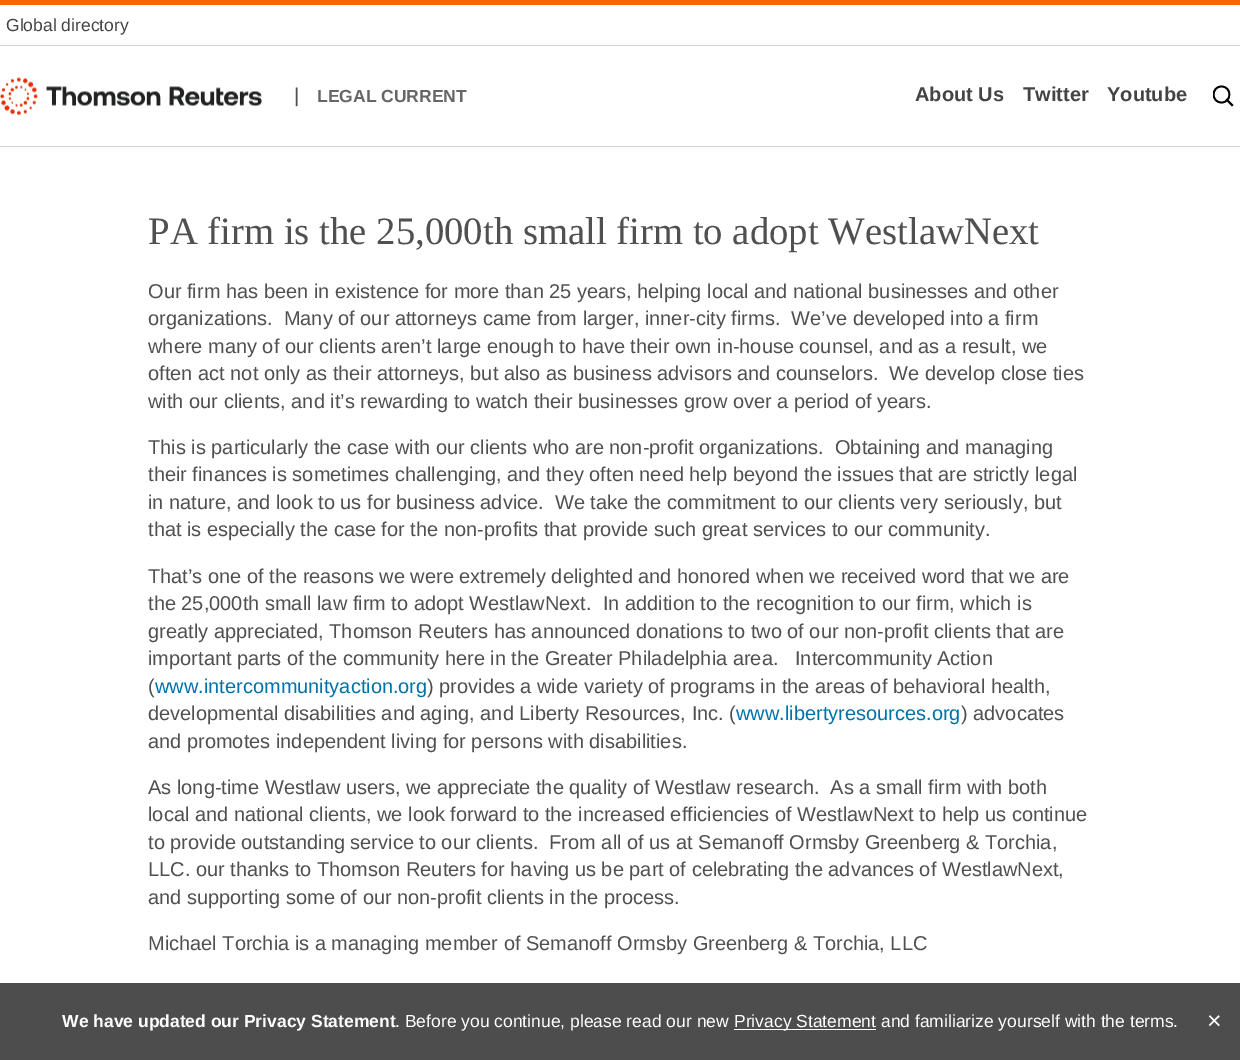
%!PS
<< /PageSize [1240 1060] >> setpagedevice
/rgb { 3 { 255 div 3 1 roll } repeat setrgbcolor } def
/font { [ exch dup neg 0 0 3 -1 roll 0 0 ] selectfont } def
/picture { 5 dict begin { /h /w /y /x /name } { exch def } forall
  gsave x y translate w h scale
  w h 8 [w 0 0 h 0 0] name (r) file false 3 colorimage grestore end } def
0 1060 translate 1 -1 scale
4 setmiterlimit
255 255 255 rgb
0 0 1240 1060 rectfill
[
  [0 0 1240 5 250 100 0]
  [0 146 1240 1 208 208 208]
  [0 45 1240 1 208 208 208]
] { aload pop rgb rectfill } forall
(img/1.rgb) 0 77 262 39 picture
0 0 0 rgb
1.8 setlinewidth
2 setlinecap
1232 105 moveto 1227 100 lineto stroke
gsave
1213 70 21 53 rectclip
1221.5 86.5 moveto 1211 86.5 1211 102.5 1221.5 102.5 curveto 1232 102.5 1232 86.5 1221.5 86.5 curveto closepath stroke
grestore
77 77 77 rgb
0 983 1240 77 rectfill
255 255 255 rgb
734 1029 142 1 rectfill
/LiberationSans-Regular 17.5 font
68 68 68 rgb
6 31 moveto (Global directory) show
/LiberationSans-Regular 20 font
80 80 80 rgb
294 102 moveto (|) show
/LiberationSans-Bold 17.5 font
102 102 102 rgb
317 102 moveto (LEGAL CURRENT) show
/LiberationSans-Bold 20 font
68 68 68 rgb
[
  [(About Us) 915 101]
  [(Twitter) 1023 101]
  [(Youtube) 1107 101]
] { aload pop moveto show } forall
/LiberationSerif-Regular 38.75 font
80 80 80 rgb
148 244 moveto (PA firm is the 25,000th small firm to adopt WestlawNext) show
/LiberationSans-Regular 20 font
[
  [(Our firm has been in existence for more than 25 years, helping local and national businesses and other) 148 298]
  [(organizations.  Many of our attorneys came from larger, inner-city firms.  We’ve developed into a firm) 148 325]
  [(where many of our clients aren’t large enough to have their own in-house counsel, and as a result, we) 148 353]
  [(often act not only as their attorneys, but also as business advisors and counselors.  We develop close ties) 148 380]
  [(with our clients, and it’s rewarding to watch their businesses grow over a period of years.) 148 408]
  [(This is particularly the case with our clients who are non-profit organizations.  Obtaining and managing) 148 454]
  [(their finances is sometimes challenging, and they often need help beyond the issues that are strictly legal) 148 481]
  [(in nature, and look to us for business advice.  We take the commitment to our clients very seriously, but) 148 509]
  [(that is especially the case for the non-profits that provide such great services to our community.) 148 536]
  [(That’s one of the reasons we were extremely delighted and honored when we received word that we are) 148 583]
  [(the 25,000th small law firm to adopt WestlawNext.  In addition to the recognition to our firm, which is) 148 610]
  [(greatly appreciated, Thomson Reuters has announced donations to two of our non-profit clients that are) 148 638]
  [(important parts of the community here in the Greater Philadelphia area.   Intercommunity Action) 148 665]
  [(\() 148 693]
] { aload pop moveto show } forall
0 114 168 rgb
155 693 moveto (www.intercommunityaction.org) show
80 80 80 rgb
427 693 moveto (\) provides a wide variety of programs in the areas of behavioral health,) show
148 720 moveto (developmental disabilities and aging, and Liberty Resources, Inc. \() show
0 114 168 rgb
736 720 moveto (www.libertyresources.org) show
80 80 80 rgb
[
  [(\) advocates) 961 720]
  [(and promotes independent living for persons with disabilities.) 148 748]
  [(As long-time Westlaw users, we appreciate the quality of Westlaw research.  As a small firm with both) 148 794]
  [(local and national clients, we look forward to the increased efficiencies of WestlawNext to help us continue) 148 821]
  [(to provide outstanding service to our clients.  From all of us at Semanoff Ormsby Greenberg & Torchia,) 148 849]
  [(LLC. our thanks to Thomson Reuters for having us be part of celebrating the advances of WestlawNext,) 148 876]
  [(and supporting some of our non-profit clients in the process.) 148 904]
  [(Michael Torchia is a managing member of Semanoff Ormsby Greenberg & Torchia, LLC) 148 950]
] { aload pop moveto show } forall
/LiberationSans-Bold 17.5 font
255 255 255 rgb
62 1027 moveto (We have updated our Privacy Statement) show
/LiberationSans-Regular 17.5 font
395 1027 moveto (. Before you continue, please read our new) show
734 1027 moveto (Privacy Statement and familiarize yourself with the terms.) show
/LiberationSans-Regular 25 font
1207 1029 moveto (×) show
showpage
